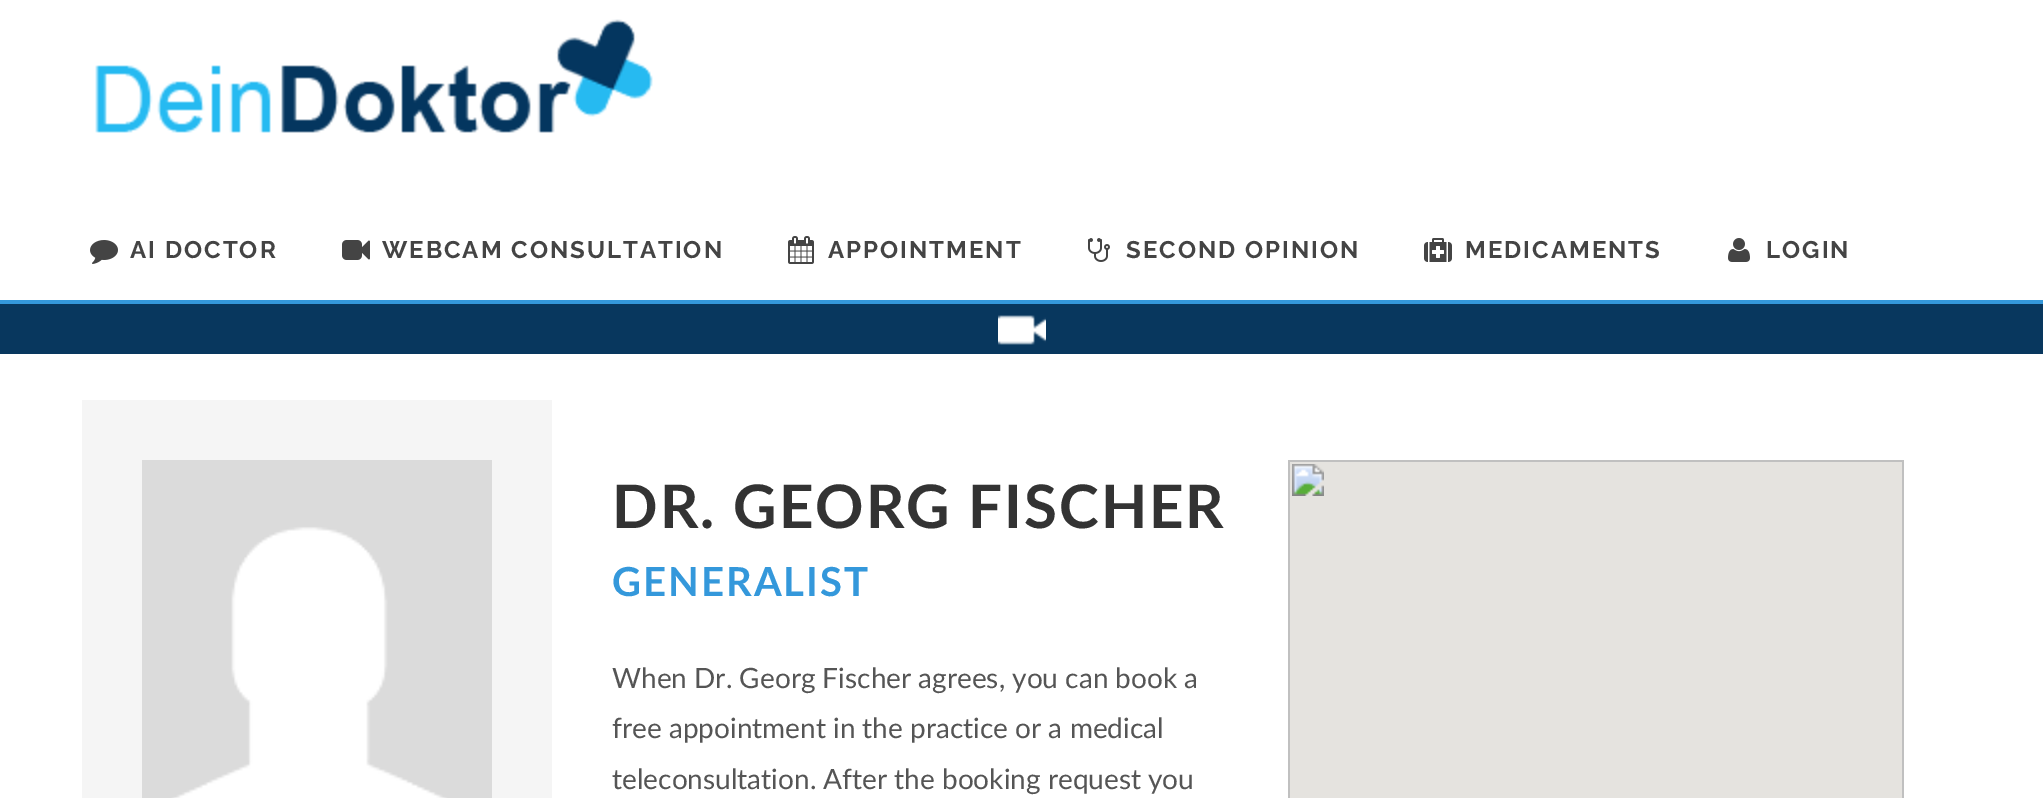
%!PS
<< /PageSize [2043 798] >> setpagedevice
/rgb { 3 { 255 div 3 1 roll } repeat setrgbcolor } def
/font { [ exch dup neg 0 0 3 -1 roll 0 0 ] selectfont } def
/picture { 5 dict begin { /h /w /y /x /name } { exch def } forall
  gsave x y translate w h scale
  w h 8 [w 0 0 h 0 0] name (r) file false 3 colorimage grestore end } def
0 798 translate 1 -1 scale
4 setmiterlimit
255 255 255 rgb
0 0 2043 798 rectfill
(img/1.rgb) 95 19 558 114 picture
(img/2.rgb) 90 240 28 24 picture
(img/3.rgb) 342 240 28 20 picture
(img/4.rgb) 788 236 26 28 picture
(img/5.rgb) 1088 238 22 24 picture
(img/6.rgb) 1424 238 28 24 picture
(img/7.rgb) 1728 238 22 24 picture
8 55 94 rgb
0 304 2043 50 rectfill
52 152 219 rgb
0 300 2043 4 rectfill
(img/8.rgb) 998 315 48 30 picture
245 245 245 rgb
82 400 470 398 rectfill
(img/9.rgb) 142 460 350 338 picture
(img/10.rgb) 1288 460 616 338 picture
/Raleway-Bold 24 font
68 68 68 rgb
130 258 moveto 2 0 (AI DOCTOR) ashow
382 258 moveto 2 0 (WEBCAM CONSULTATION) ashow
828 258 moveto 2 0 (APPOINTMENT) ashow
1126 258 moveto 2 0 (SECOND OPINION) ashow
1465 258 moveto 2 0 (MEDICAMENTS) ashow
1766 258 moveto 2 0 (LOGIN) ashow
/Lato-Bold 60 font
51 51 51 rgb
612 528 moveto 2 0 (DR. GEORG FISCHER) ashow
/Lato-Bold 40 font
52 152 219 rgb
612 596 moveto 2 0 (GENERALIST) ashow
/Lato-Regular 28 font
85 85 85 rgb
[
  [(When Dr. Georg Fischer agrees, you can book a) 612 688]
  [(free appointment in the practice or a medical) 612 738]
  [(teleconsultation. After the booking request you) 612 789]
] { aload pop moveto show } forall
showpage
